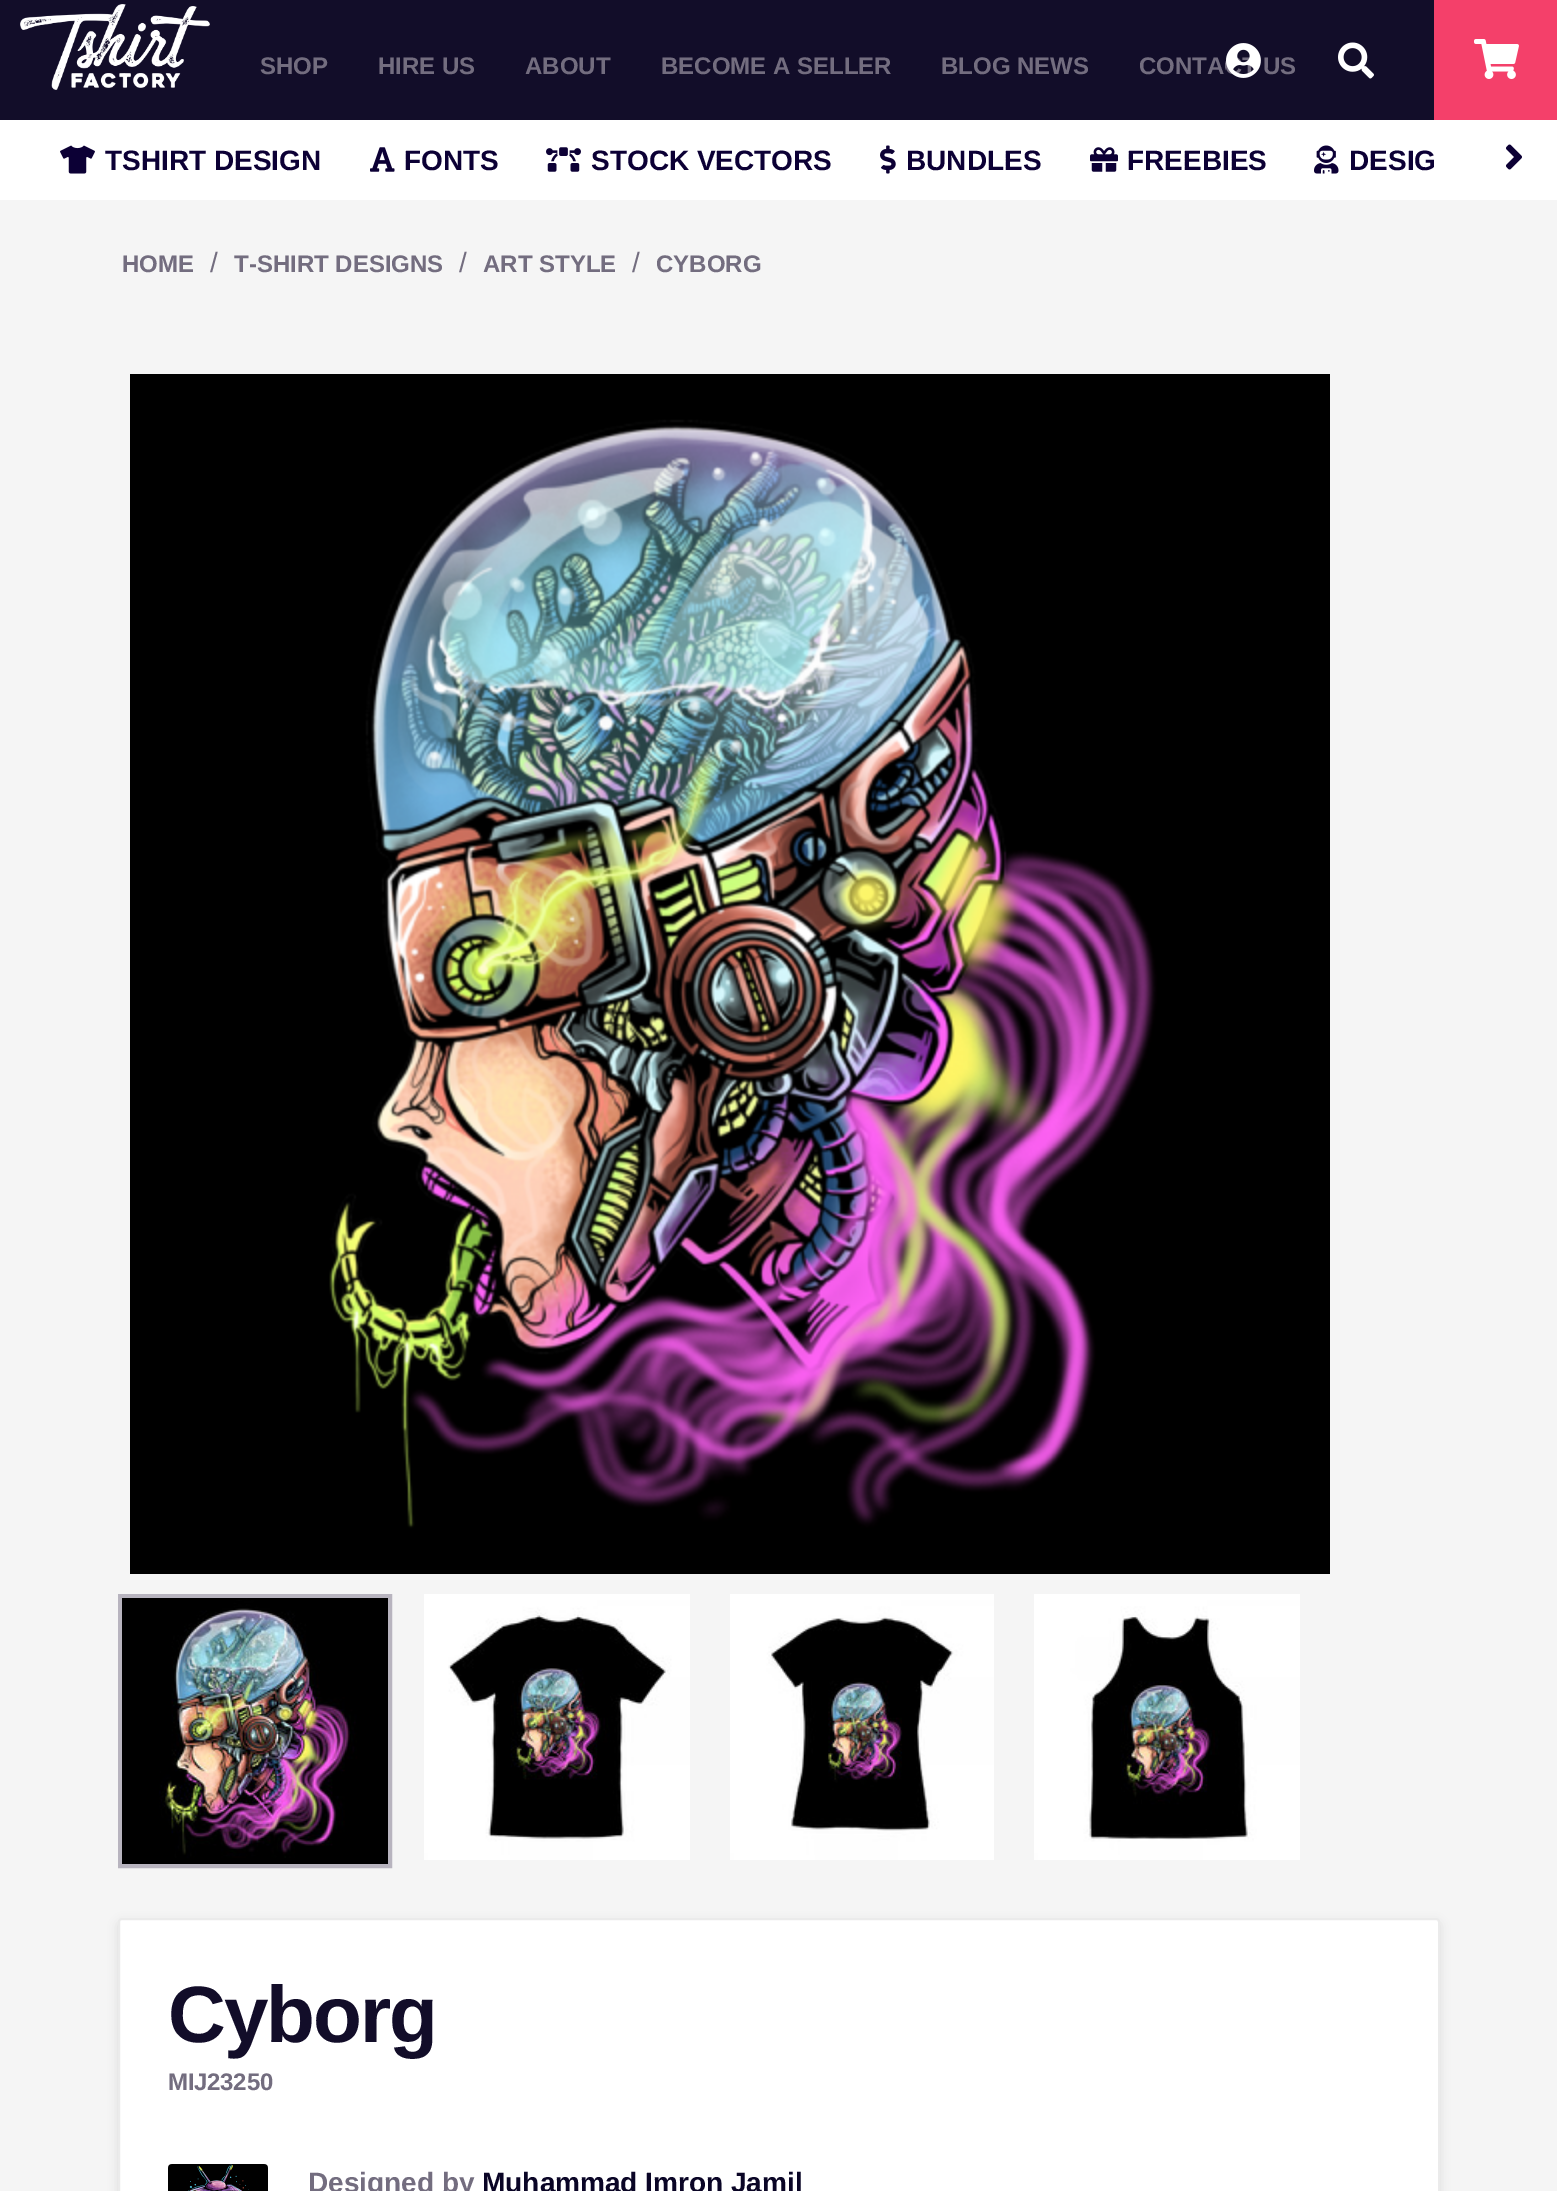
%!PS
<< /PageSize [1557 2191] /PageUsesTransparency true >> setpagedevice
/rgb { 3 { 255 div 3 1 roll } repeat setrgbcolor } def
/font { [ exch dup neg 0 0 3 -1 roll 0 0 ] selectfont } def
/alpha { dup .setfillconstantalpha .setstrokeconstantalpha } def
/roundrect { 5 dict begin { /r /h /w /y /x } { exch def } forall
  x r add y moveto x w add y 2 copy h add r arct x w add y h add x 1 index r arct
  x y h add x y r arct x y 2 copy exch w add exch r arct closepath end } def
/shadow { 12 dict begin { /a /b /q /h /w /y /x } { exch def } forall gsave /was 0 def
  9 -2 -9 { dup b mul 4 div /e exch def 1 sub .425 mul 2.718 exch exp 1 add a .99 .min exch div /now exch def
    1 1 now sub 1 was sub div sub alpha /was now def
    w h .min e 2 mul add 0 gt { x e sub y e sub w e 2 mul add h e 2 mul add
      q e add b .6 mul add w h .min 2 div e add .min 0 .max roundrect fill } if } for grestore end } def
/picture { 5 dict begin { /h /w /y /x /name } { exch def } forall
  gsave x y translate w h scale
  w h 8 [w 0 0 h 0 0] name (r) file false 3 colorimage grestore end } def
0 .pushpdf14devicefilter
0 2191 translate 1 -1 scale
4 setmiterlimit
245 245 245 rgb
0 0 1557 2191 rectfill
18 13 41 rgb
0 0 1434 120 rectfill
(img/1.rgb) 20 4 190 86 picture
(img/3.rgb) 1338 42 36 37 picture
244 64 106 rgb
1434 0 123 120 rectfill
(img/4.rgb) 1474 39 45 40 picture
255 255 255 rgb
0 120 1557 80 rectfill
(img/5.rgb) 60 145 35 29 picture
(img/6.rgb) 370 147 25 25 picture
(img/7.rgb) 546 147 35 25 picture
(img/8.rgb) 880 145 16 29 picture
(img/9.rgb) 1090 147 28 25 picture
(img/10.rgb) 1314 145 25 29 picture
(img/11.rgb) 1506 144 16 26 picture
(img/12.rgb) 130 374 1200 1200 picture
184 180 191 rgb
4 setlinewidth
120 1596 270 270 rectstroke
(img/13.rgb) 122 1598 266 266 picture
(img/14.rgb) 424 1594 266 266 picture
(img/15.rgb) 730 1594 264 266 picture
(img/16.rgb) 1034 1594 266 266 picture
0 0 0 rgb
118 1922 1322 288 4 5 0.1 shadow
255 255 255 rgb
119 1919 1320 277 3 roundrect gsave fill grestore
235 235 235 rgb
2 setlinewidth
stroke
(img/17.rgb) 168 2164 100 27 picture
/LiberationSans-Bold 24 font
115 109 127 rgb
[
  [(SHOP) 260 74]
  [(HIRE US) 378 74]
  [(ABOUT) 525 74]
  [(BECOME A SELLER) 661 74]
  [(BLOG NEWS) 941 74]
  [(CONTACT US) 1139 74]
] { aload pop moveto show } forall
(img/2.rgb) 1226 43 35 35 picture
/LiberationSans-Bold 28 font
12 0 53 rgb
[
  [(TSHIRT DESIGN) 105 170]
  [(FONTS) 404 170]
  [(STOCK VECTORS) 591 170]
  [(BUNDLES) 906 170]
  [(FREEBIES) 1127 170]
  [(DESIG) 1349 170]
] { aload pop moveto show } forall
/LiberationSans-Bold 24 font
115 109 127 rgb
122 272 moveto (HOME) show
/LiberationSans-Regular 28 font
210 272 moveto (/) show
/LiberationSans-Bold 24 font
234 272 moveto (T-SHIRT DESIGNS) show
/LiberationSans-Regular 28 font
459 272 moveto (/) show
/LiberationSans-Bold 24 font
483 272 moveto (ART STYLE) show
/LiberationSans-Regular 28 font
632 272 moveto (/) show
/LiberationSans-Bold 24 font
656 272 moveto (CYBORG) show
/LiberationSans-Bold 80 font
18 13 41 rgb
168 2042 moveto -2 0 (Cyborg) ashow
/LiberationSans-Bold 24 font
115 109 127 rgb
168 2090 moveto -0.25 0 (MIJ23250) ashow
/LiberationSans-Bold 28 font
308 2192 moveto (Designed by) show
10 5 38 rgb
482 2192 moveto (Muhammad Imron Jamil) show
.poppdf14devicefilter showpage
